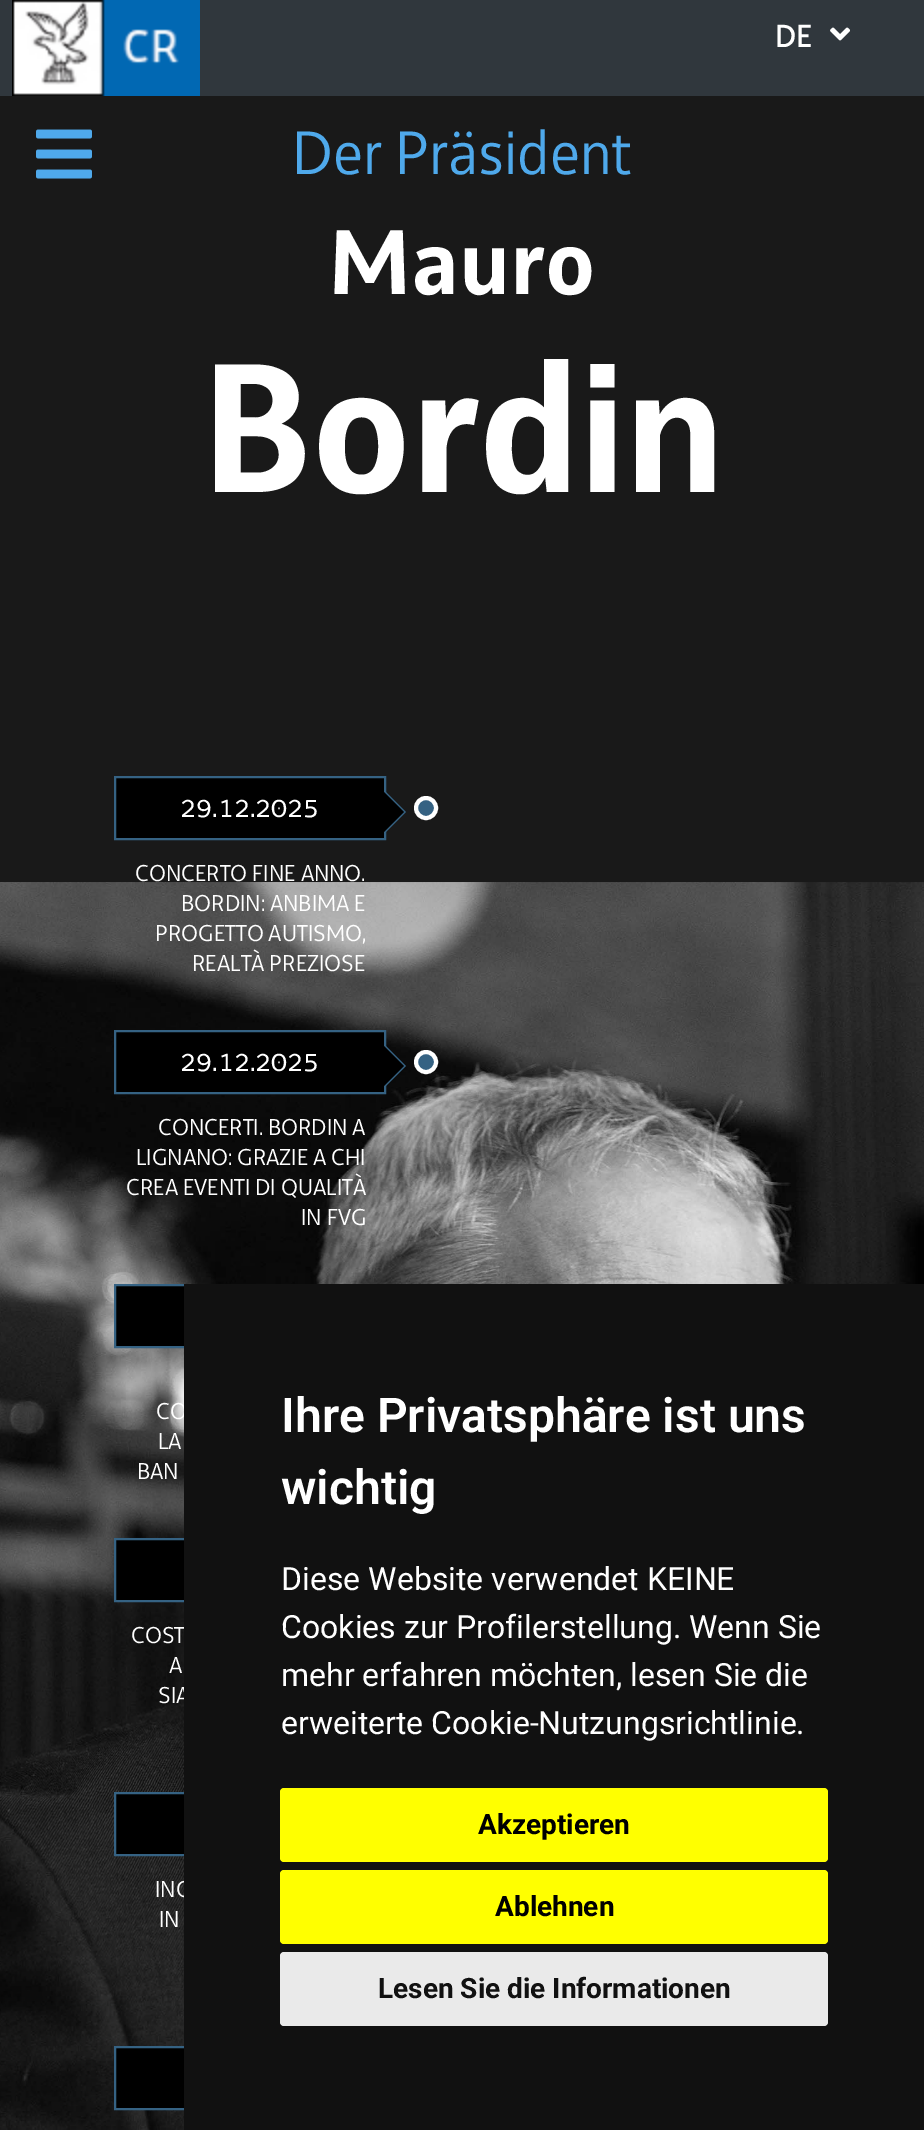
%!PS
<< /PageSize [924 2130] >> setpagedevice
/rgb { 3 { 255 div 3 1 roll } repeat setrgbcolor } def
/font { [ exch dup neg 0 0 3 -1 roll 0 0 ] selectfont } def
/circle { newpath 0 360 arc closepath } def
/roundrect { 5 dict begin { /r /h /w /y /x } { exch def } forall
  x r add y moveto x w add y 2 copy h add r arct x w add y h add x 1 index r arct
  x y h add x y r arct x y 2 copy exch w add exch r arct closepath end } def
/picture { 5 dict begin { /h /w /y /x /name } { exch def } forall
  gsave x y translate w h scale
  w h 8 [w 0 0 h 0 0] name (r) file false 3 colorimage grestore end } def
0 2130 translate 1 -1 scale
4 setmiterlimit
48 55 61 rgb
0 0 924 2130 rectfill
(img/1.rgb) 12 0 188 96 picture
(img/2.rgb) 830 27 20 14 picture
25 25 25 rgb
0 96 924 787 rectfill
(img/3.rgb) 36 129 56 50 picture
(img/4.rgb) 0 882 924 1248 picture
0 0 0 rgb
115 777 moveto 385 777 lineto 385 839 lineto 115 839 lineto closepath gsave fill grestore
53 98 131 rgb
2 setlinewidth
stroke
386 832 moveto 386 792 lineto 406 812 lineto closepath fill
0 0 0 rgb
384 832 moveto 384 792 lineto 404 812 lineto closepath fill
53 98 131 rgb
426 808 10 circle gsave fill grestore
255 255 255 rgb
4 setlinewidth
stroke
0 0 0 rgb
115 1031 moveto 385 1031 lineto 385 1093 lineto 115 1093 lineto closepath gsave fill grestore
53 98 131 rgb
2 setlinewidth
stroke
386 1086 moveto 386 1046 lineto 406 1066 lineto closepath fill
0 0 0 rgb
384 1086 moveto 384 1046 lineto 404 1066 lineto closepath fill
53 98 131 rgb
426 1062 10 circle gsave fill grestore
255 255 255 rgb
4 setlinewidth
stroke
0 0 0 rgb
116 1286 68 60 rectfill
53 98 131 rgb
2 setlinewidth
115 1285 270 62 rectstroke
0 0 0 rgb
116 1540 68 60 rectfill
53 98 131 rgb
115 1539 270 62 rectstroke
0 0 0 rgb
116 1794 68 60 rectfill
53 98 131 rgb
115 1793 270 62 rectstroke
0 0 0 rgb
116 2048 68 60 rectfill
53 98 131 rgb
115 2047 270 62 rectstroke
/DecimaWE-Bold 32 font
255 255 255 rgb
775 47 moveto (DE) show
/DecimaWE-Regular 64 font
79 169 235 rgb
292 174 moveto (Der Präsident) show
/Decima-Bold 96 font
255 255 255 rgb
328 294 moveto (Mauro) show
/Decima-Bold 192 font
200 492 moveto -2 0 (Bordin) ashow
/DecimaWE-Regular 32 font
180 817 moveto (29.12.2025) show
/DecimaWE-Regular 24 font
[
  [(CONCERTO FINE ANNO.) 135 881]
  [(BORDIN: ANBIMA E) 181 911]
  [(PROGETTO AUTISMO,) 155 941]
  [(REALTÀ PREZIOSE) 192 971]
] { aload pop moveto show } forall
/DecimaWE-Regular 32 font
180 1071 moveto (29.12.2025) show
/DecimaWE-Regular 24 font
[
  [(CONCERTI. BORDIN A) 158 1135]
  [(LIGNANO: GRAZIE A CHI) 136 1165]
  [(CREA EVENTI DI QUALITÀ) 126 1195]
  [(IN FVG) 301 1225]
  [(CO) 156 1419]
  [(LA) 158 1449]
  [(BAN) 137 1479]
  [(COST) 131 1643]
  [(A) 169 1673]
  [(SIA) 158 1703]
  [(INC) 155 1897]
  [(IN) 159 1927]
] { aload pop moveto show } forall
17 17 17 rgb
184 1284 740 846 rectfill
/Roboto-SemiBold 48 font
255 255 255 rgb
281 1432 moveto (Ihre Privatsphäre ist uns) show
281 1504 moveto (wichtig) show
/Roboto-Regular 32 font
[
  [(Diese Website verwendet KEINE) 281 1590]
  [(Cookies zur Profilerstellung. Wenn Sie) 281 1638]
  [(mehr erfahren möchten, lesen Sie die) 281 1686]
  [(erweiterte Cookie-Nutzungsrichtlinie.) 281 1734]
] { aload pop moveto show } forall
255 255 0 rgb
280 1788 548 74 4 roundrect fill
/Roboto-Bold 28 font
0 0 0 rgb
478 1834 moveto (Akzeptieren) show
255 255 0 rgb
280 1870 548 74 4 roundrect fill
0 0 0 rgb
495 1916 moveto (Ablehnen) show
234 234 234 rgb
280 1952 548 74 4 roundrect fill
17 17 17 rgb
378 1998 moveto (Lesen Sie die Informationen) show
showpage
